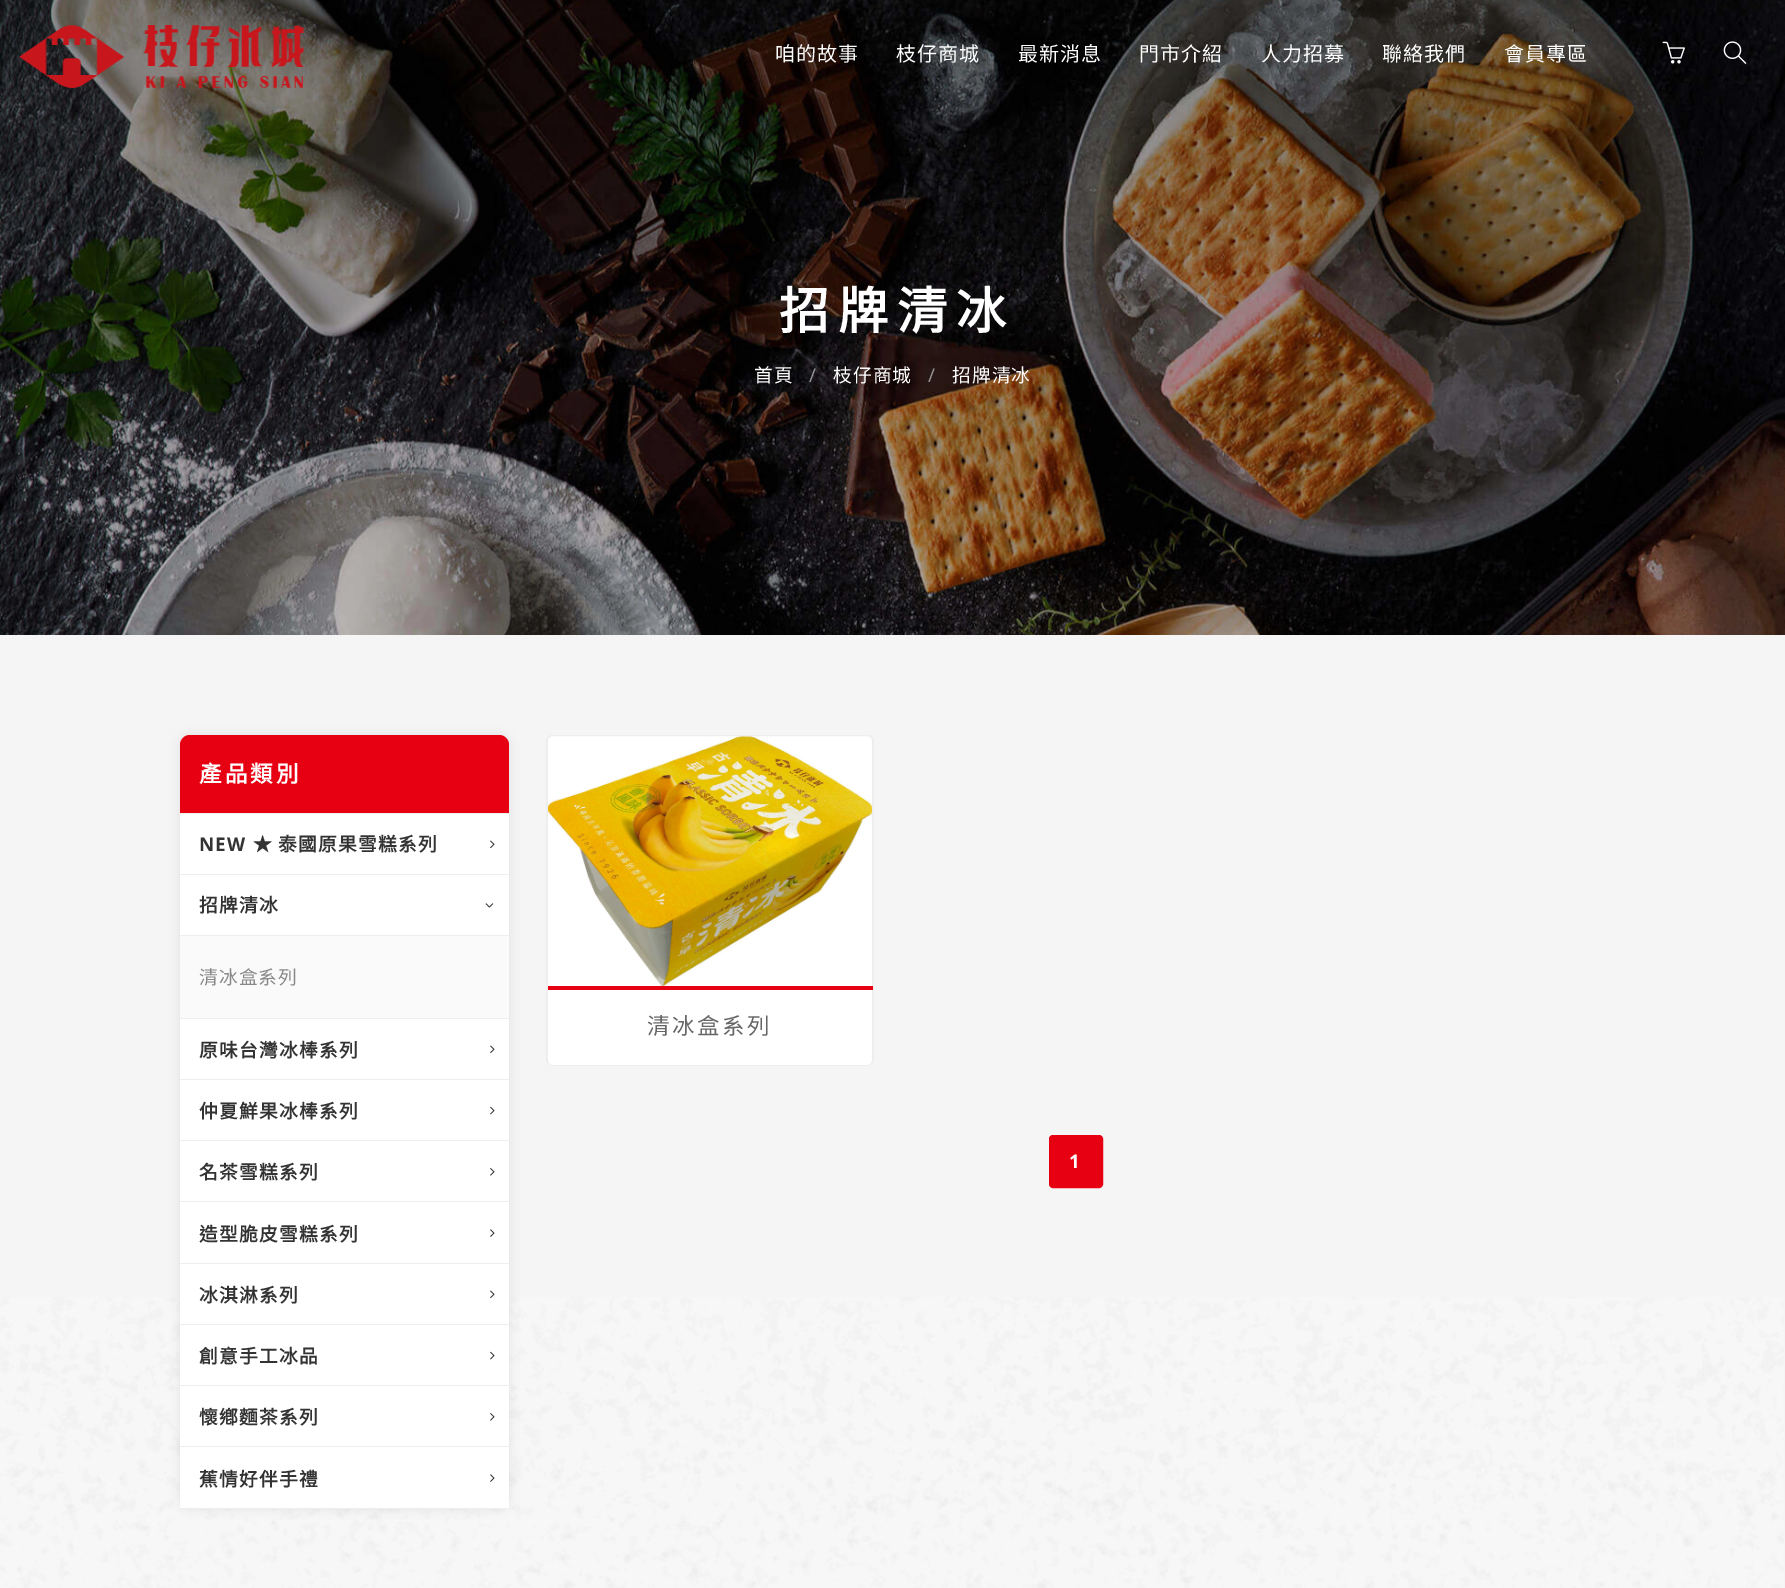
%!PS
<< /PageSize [1785 1588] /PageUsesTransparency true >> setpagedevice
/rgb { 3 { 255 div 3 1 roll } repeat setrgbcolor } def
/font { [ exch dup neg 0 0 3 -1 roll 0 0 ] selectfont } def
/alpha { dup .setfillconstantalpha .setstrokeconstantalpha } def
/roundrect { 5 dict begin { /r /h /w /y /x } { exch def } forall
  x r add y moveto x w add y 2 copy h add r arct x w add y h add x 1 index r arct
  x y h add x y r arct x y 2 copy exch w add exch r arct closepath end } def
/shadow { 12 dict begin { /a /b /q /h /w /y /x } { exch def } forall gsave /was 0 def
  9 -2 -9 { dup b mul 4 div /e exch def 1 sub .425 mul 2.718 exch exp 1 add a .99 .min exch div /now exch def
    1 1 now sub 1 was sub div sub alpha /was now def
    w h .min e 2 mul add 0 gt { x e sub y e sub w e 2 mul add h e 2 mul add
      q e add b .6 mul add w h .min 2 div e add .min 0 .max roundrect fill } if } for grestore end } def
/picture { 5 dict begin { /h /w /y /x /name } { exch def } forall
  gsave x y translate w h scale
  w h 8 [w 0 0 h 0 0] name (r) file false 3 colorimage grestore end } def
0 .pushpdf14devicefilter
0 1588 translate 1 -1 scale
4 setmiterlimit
245 245 245 rgb
0 0 1785 1588 rectfill
(img/4.rgb) 0 0 1785 635 picture
(img/1.rgb) 18 25 286 63 picture
(img/2.rgb) 1662 41 23 23 picture
(img/3.rgb) 1723 41 24 23 picture
(img/5.rgb) 0 1297 1784 291 picture
0 0 0 rgb
180 735 329 774 10 5 0.08 shadow
230 0 18 rgb
190 735 moveto 499 735 lineto 504.5 735 509 739.5 509 745 curveto 509 813 lineto 180 813 lineto 180 745 lineto 180 739.5 184.5 735 190 735 curveto closepath fill
255 255 255 rgb
180 814 329 60 rectfill
238 238 238 rgb
180 813 329 1 rectfill
(img/6.rgb) 490 840 5 9 picture
255 255 255 rgb
180 875 329 60 rectfill
238 238 238 rgb
180 874 329 1 rectfill
(img/7.rgb) 485 903 9 5 picture
[
  [180 936 329 82 250 250 250]
  [180 935 329 1 238 238 238]
  [180 1019 329 60 255 255 255]
  [180 1018 329 1 238 238 238]
] { aload pop rgb rectfill } forall
(img/6.rgb) 490 1045 5 9 picture
255 255 255 rgb
180 1080 329 60 rectfill
238 238 238 rgb
180 1079 329 1 rectfill
(img/8.rgb) 490 1106 5 9 picture
255 255 255 rgb
180 1141 329 60 rectfill
238 238 238 rgb
180 1140 329 1 rectfill
(img/9.rgb) 490 1168 5 8 picture
255 255 255 rgb
180 1202 329 61 rectfill
238 238 238 rgb
180 1201 329 1 rectfill
(img/10.rgb) 490 1229 5 8 picture
255 255 255 rgb
180 1264 329 60 rectfill
238 238 238 rgb
180 1263 329 1 rectfill
(img/6.rgb) 490 1290 5 9 picture
255 255 255 rgb
180 1325 329 60 rectfill
238 238 238 rgb
180 1324 329 1 rectfill
(img/8.rgb) 490 1351 5 9 picture
255 255 255 rgb
180 1386 329 60 rectfill
238 238 238 rgb
180 1385 329 1 rectfill
(img/9.rgb) 490 1413 5 8 picture
[
  [180 1447 329 61 255 255 255]
  [180 1508 329 1 238 238 238]
  [180 1446 329 1 238 238 238]
] { aload pop rgb rectfill } forall
(img/10.rgb) 490 1474 5 8 picture
(img/11.rgb) 548 736 324 250 picture
552 735 moveto 868 735 lineto 871 735 874 738 874 741 curveto 874 986 lineto 546 986 lineto 546 741 lineto 546 738 549 735 552 735 curveto closepath 552 736 moveto 868 736 lineto 870 736 872 738 872 741 curveto 872 986 lineto 548 986 lineto 548 741 lineto 548 738 550 736 552 736 curveto closepath eofill
255 255 255 rgb
546 986 moveto 874 986 lineto 874 1060 lineto 874 1063.5 871.5 1066 868 1066 curveto 552 1066 lineto 548.5 1066 546 1063.5 546 1060 curveto closepath fill
238 238 238 rgb
546 986 moveto 874 986 lineto 874 1060 lineto 874 1063 871 1066 868 1066 curveto 552 1066 lineto 549 1066 546 1063 546 1060 curveto closepath 548 986 moveto 872 986 lineto 872 1060 lineto 872 1063 870 1065 868 1065 curveto 552 1065 lineto 550 1065 548 1063 548 1060 curveto closepath eofill
230 0 18 rgb
548 986 325 4 rectfill
1050.5 1136.5 51 50 2.5 roundrect gsave fill grestore
3 setlinewidth
stroke
/NotoSansCJKTC-Regular 20 font
255 255 255 rgb
775 61 moveto 1 0 (咱的故事) ashow
896 61 moveto 1 0 (枝仔商城) ashow
1018 61 moveto 1 0 (最新消息) ashow
1139 61 moveto 1 0 (門市介紹) ashow
1261 61 moveto 1 0 (人力招募) ashow
1382 61 moveto 1 0 (聯絡我們) ashow
1504 61 moveto 1 0 (會員專區) ashow
/NotoSansCJKTC-Bold 50 font
779 329 moveto 9 0 (招牌清冰) ashow
/NotoSansCJKTC-Regular 18.75 font
754 382 moveto 1 0 (首頁) ashow
/OpenSans-Regular 18.75 font
153 153 153 rgb
809 382 moveto 1 0 (/) ashow
/NotoSansCJKTC-Regular 18.75 font
255 255 255 rgb
833 382 moveto 1 0 (枝仔商城) ashow
/OpenSans-Regular 18.75 font
153 153 153 rgb
928 382 moveto 1 0 (/) ashow
/NotoSansCJKTC-Regular 18.75 font
255 255 255 rgb
952 382 moveto 1 0 (招牌清冰) ashow
/NotoSansCJKTC-Bold 22.5 font
199 782 moveto 3 0 (產品類別) ashow
/OpenSans-Bold 18.75 font
51 51 51 rgb
199 851 moveto 1.25 0 (NEW) ashow
/NotoSansCJKTC-Bold 18.75 font
253 851 moveto 1.25 0 (★ 泰國原果雪糕系列) ashow
199 912 moveto 1.25 0 (招牌清冰) ashow
/NotoSansCJKTC-Regular 18.75 font
136 136 136 rgb
199 984 moveto 1 0 (清冰盒系列) ashow
/NotoSansCJKTC-Bold 18.75 font
51 51 51 rgb
199 1057 moveto 1.25 0 (原味台灣冰棒系列) ashow
199 1118 moveto 1.25 0 (仲夏鮮果冰棒系列) ashow
199 1179 moveto 1.25 0 (名茶雪糕系列) ashow
199 1241 moveto 1.25 0 (造型脆皮雪糕系列) ashow
199 1302 moveto 1.25 0 (冰淇淋系列) ashow
199 1363 moveto 1.25 0 (創意手工冰品) ashow
199 1424 moveto 1.25 0 (懷鄕麵茶系列) ashow
199 1486 moveto 1.25 0 (蕉情好伴手禮) ashow
/NotoSansCJKTC-Regular 22.5 font
102 102 102 rgb
647 1034 moveto 2.5 0 (清冰盒系列) ashow
/OpenSans-Bold 18.75 font
255 255 255 rgb
1069 1168 moveto 1 0 (1) ashow
.poppdf14devicefilter showpage
